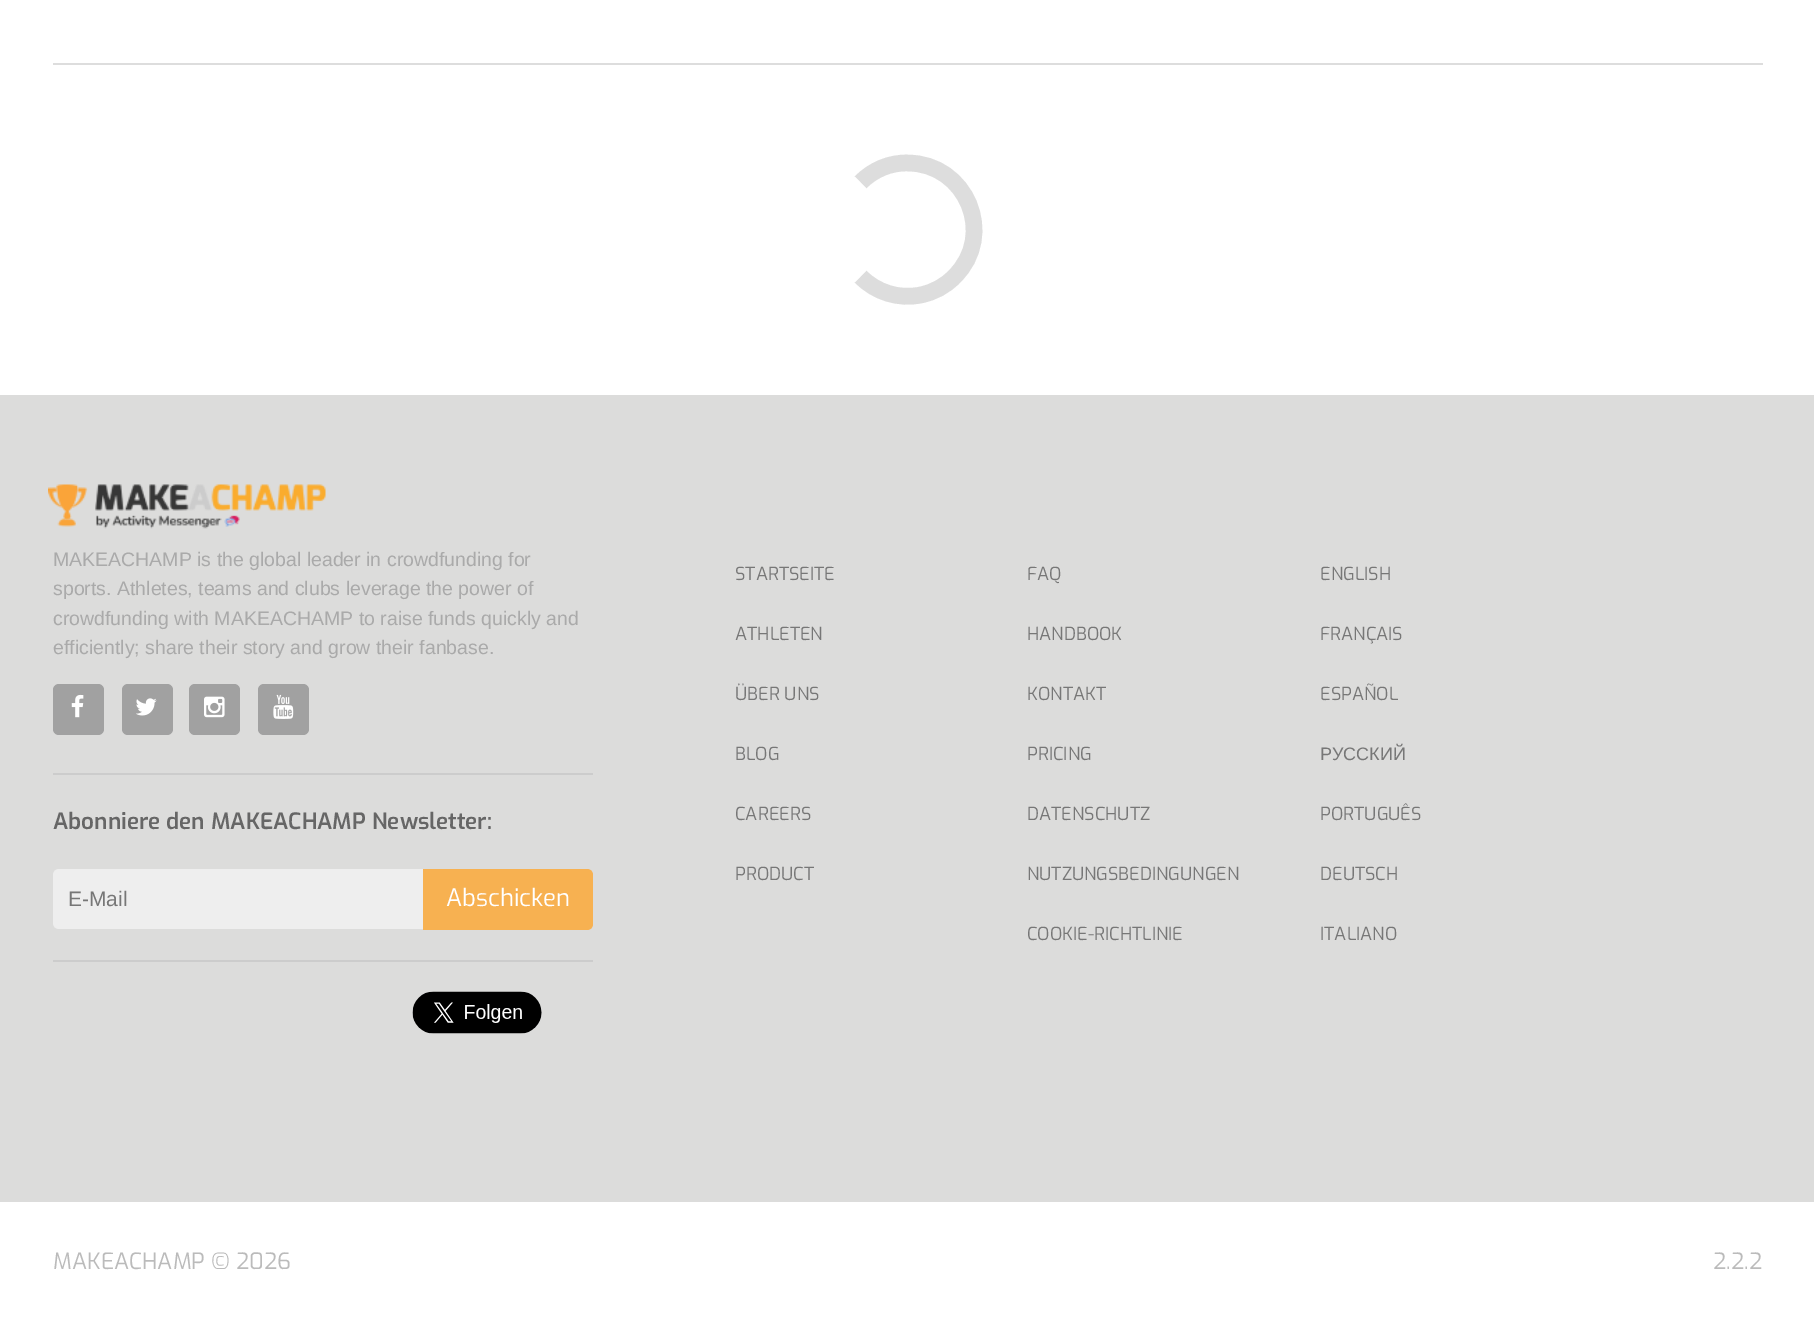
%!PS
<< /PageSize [1814 1322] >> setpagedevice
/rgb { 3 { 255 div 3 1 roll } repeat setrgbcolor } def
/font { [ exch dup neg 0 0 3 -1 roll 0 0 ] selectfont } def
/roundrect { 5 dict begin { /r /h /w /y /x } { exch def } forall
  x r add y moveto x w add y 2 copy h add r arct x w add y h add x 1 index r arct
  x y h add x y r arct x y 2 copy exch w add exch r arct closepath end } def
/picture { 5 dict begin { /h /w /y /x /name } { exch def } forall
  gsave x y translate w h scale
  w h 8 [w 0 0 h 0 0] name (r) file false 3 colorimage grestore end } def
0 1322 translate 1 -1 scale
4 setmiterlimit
255 255 255 rgb
0 0 1814 1322 rectfill
221 221 221 rgb
53 63 1710 2 rectfill
16.5 setlinewidth
860.5 182.5 moveto 872.5 170 890 162.5 907.5 163 curveto 966.5 163 996.5 235 954.5 276.5 curveto 945.5 286 933.5 292.5 920.5 295 curveto 899 299.5 876 292.5 860.5 276.5 curveto stroke
255 255 255 rgb
860.5 276.5 moveto 834.5 251 834.5 208 860.5 182.5 curveto stroke
220 220 219 rgb
0 395 1814 807 rectfill
(img/1.rgb) 48 484 278 45 picture
161 161 161 rgb
53 684 51 51 6 roundrect fill
(img/2.rgb) 71 694 13 24 picture
122 684 51 51 6 roundrect fill
(img/3.rgb) 136 698 21 18 picture
189 684 51 51 6 roundrect fill
(img/4.rgb) 204 696 21 22 picture
258 684 51 51 6 roundrect fill
(img/5.rgb) 273 694 21 25 picture
204 204 204 rgb
53 773 540 2 rectfill
238 238 238 rgb
59 869 moveto 423 869 lineto 423 929 lineto 59 929 lineto 55.5 929 53 926.5 53 923 curveto 53 875 lineto 53 871.5 55.5 869 59 869 curveto closepath fill
247 177 81 rgb
423 869 moveto 587 869 lineto 590.5 869 593 871.5 593 875 curveto 593 924 lineto 593 927.5 590.5 930 587 930 curveto 423 930 lineto closepath fill
204 204 204 rgb
53 960 540 2 rectfill
(img/6.rgb) 412 991 130 43 picture
/LiberationSans-Regular 19.5 font
170 170 170 rgb
[
  [(MAKEACHAMP is the global leader in crowdfunding for) 53 566]
  [(sports. Athletes, teams and clubs leverage the power of) 53 595]
  [(crowdfunding with MAKEACHAMP to raise funds quickly and) 53 625]
  [(efficiently; share their story and grow their fanbase.) 53 654]
] { aload pop moveto show } forall
/Exo-SemiBold 22.5 font
102 102 102 rgb
53 829 moveto (Abonniere den MAKEACHAMP Newsletter:) show
/LiberationSans-Regular 21 font
119 119 119 rgb
68 906 moveto (E-Mail) show
/Exo-Regular 24 font
255 255 255 rgb
446 906 moveto (Abschicken) show
/Exo-Regular 18 font
119 119 119 rgb
[
  [(STARTSEITE) 735 580]
  [(ATHLETEN) 735 640]
  [(ÜBER UNS) 735 700]
  [(BLOG) 735 760]
  [(CAREERS) 735 820]
  [(PRODUCT) 735 880]
  [(FAQ) 1027 580]
  [(HANDBOOK) 1027 640]
  [(KONTAKT) 1027 700]
  [(PRICING) 1027 760]
  [(DATENSCHUTZ) 1027 820]
  [(NUTZUNGSBEDINGUNGEN) 1027 880]
  [(COOKIE-RICHTLINIE) 1027 940]
  [(ENGLISH) 1320 580]
  [(FRANÇAIS) 1320 640]
  [(ESPAÑOL) 1320 700]
] { aload pop moveto show } forall
/LiberationSans-Regular 18 font
1320 760 moveto (РУССКИЙ) show
/Exo-Regular 18 font
[
  [(PORTUGUÊS) 1320 820]
  [(DEUTSCH) 1320 880]
  [(ITALIANO) 1320 940]
] { aload pop moveto show } forall
/Exo-Regular 22.5 font
187 187 187 rgb
53 1269 moveto (MAKEACHAMP © 2026) show
1713 1269 moveto (2.2.2) show
showpage
